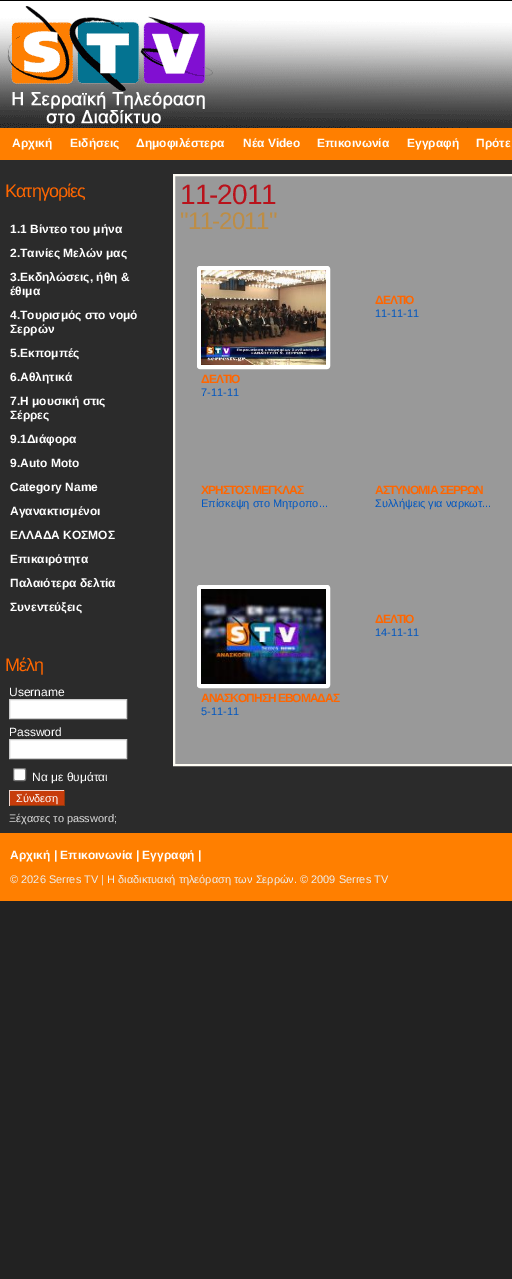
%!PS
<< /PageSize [512 1279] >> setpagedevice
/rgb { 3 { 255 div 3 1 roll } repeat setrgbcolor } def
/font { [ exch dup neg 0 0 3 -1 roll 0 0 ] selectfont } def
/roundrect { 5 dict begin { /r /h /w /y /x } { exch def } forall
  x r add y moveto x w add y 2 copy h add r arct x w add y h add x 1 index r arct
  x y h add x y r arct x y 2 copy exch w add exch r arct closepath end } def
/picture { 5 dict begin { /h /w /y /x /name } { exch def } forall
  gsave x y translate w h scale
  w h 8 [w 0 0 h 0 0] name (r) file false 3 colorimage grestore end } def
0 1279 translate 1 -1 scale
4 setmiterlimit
34 34 34 rgb
0 0 512 1279 rectfill
[
  [0 160 512 673 43 43 43]
  [0 0 512 1 0 0 0]
  [0 1 512 5 255 255 255]
] { aload pop rgb rectfill } forall
(img/1.rgb) 0 6 512 122 picture
255 127 0 rgb
0 128 512 32 rectfill
255 255 255 rgb
9.5 699.5 moveto 126.5 699.5 lineto 126.5 718.5 lineto 9.5 718.5 lineto closepath gsave fill grestore
204 204 204 rgb
stroke
255 255 255 rgb
9.5 739.5 moveto 126.5 739.5 lineto 126.5 758.5 lineto 9.5 758.5 lineto closepath gsave fill grestore
204 204 204 rgb
stroke
255 255 255 rgb
13.5 768.5 12 12 1.5 roundrect gsave fill grestore
118 118 118 rgb
stroke
[
  [10 791 54 14 199 60 11]
  [9 790 56 1 242 216 208]
  [64 790 1 16 138 57 14]
  [9 805 56 1 138 57 14]
  [9 790 1 16 242 216 208]
] { aload pop rgb rectfill } forall
153 153 153 rgb
174 175 moveto 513 175 lineto 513 765 lineto 174 765 lineto closepath gsave fill grestore
255 253 245 rgb
2 setlinewidth
stroke
255 255 255 rgb
197.5 266.5 132 102 2.5 roundrect gsave fill grestore
1 setlinewidth
stroke
(img/2.rgb) 201 270 125 95 picture
197.5 585.5 132 102 2.5 roundrect gsave fill grestore
stroke
(img/3.rgb) 201 589 125 95 picture
255 127 0 rgb
0 833 512 68 rectfill
/LiberationSans-Bold 12 font
255 255 255 rgb
[
  [(Αρχική) 12 147]
  [(Ειδήσεις) 70 147]
  [(Δημοφιλέστερα) 136 147]
  [(Νέα Video) 243 147]
  [(Επικοινωνία) 317 147]
  [(Εγγραφή) 407 147]
  [(Πρότε) 476 147]
] { aload pop moveto show } forall
/LiberationSans-Regular 18 font
255 102 0 rgb
5 197 moveto -1 0 (Κατηγορίες) ashow
/LiberationSans-Bold 12 font
255 255 255 rgb
[
  [(1.1 Βίντεο του μήνα) 10 233]
  [(2.Ταινίες Μελών μας) 10 257]
  [(3.Εκδηλώσεις, ήθη &) 10 281]
  [(έθιμα) 10 295]
  [(4.Τουρισμός στο νομό) 10 319]
  [(Σερρών) 10 333]
  [(5.Εκπομπές) 10 357]
  [(6.Αθλητικά) 10 381]
  [(7.Η μουσική στις) 10 405]
  [(Σέρρες) 10 419]
  [(9.1Διάφορα) 10 443]
  [(9.Auto Moto) 10 467]
  [(Category Name) 10 491]
  [(Αγανακτισμένοι) 10 515]
  [(ΕΛΛΑΔΑ ΚΟΣΜΟΣ) 10 539]
  [(Επικαιρότητα) 10 563]
  [(Παλαιότερα δελτία) 10 587]
  [(Συνεντεύξεις) 10 611]
] { aload pop moveto show } forall
/LiberationSans-Regular 18 font
255 102 0 rgb
5 671 moveto -1 0 (Μέλη) ashow
/LiberationSans-Regular 12 font
255 255 255 rgb
[
  [(Username) 9 696]
  [(Password) 9 736]
  [(Να με θυμάται) 32 781]
] { aload pop moveto show } forall
/LiberationSans-Regular 11 font
16 802 moveto (Σύνδεση) show
221 221 221 rgb
9 822 moveto (Ξέχασες το password;) show
/LiberationSans-Regular 28 font
185 18 27 rgb
180 204 moveto -1 0 (11-2011) ashow
/LiberationSans-Regular 24 font
189 141 70 rgb
180 229 moveto -1 0 ("11-2011") ashow
/LiberationSans-Bold 12 font
255 102 0 rgb
375 304 moveto -1 0 (ΔΕΛΤΙΟ) ashow
/LiberationSans-Regular 11 font
0 87 194 rgb
375 317 moveto (11-11-11) show
/LiberationSans-Bold 12 font
255 102 0 rgb
201 383 moveto -1 0 (ΔΕΛΤΙΟ) ashow
/LiberationSans-Regular 11 font
0 87 194 rgb
201 396 moveto (7-11-11) show
/LiberationSans-Bold 12 font
255 102 0 rgb
201 494 moveto -1 0 (ΧΡΗΣΤΟΣ ΜΕΓΚΛΑΣ) ashow
/LiberationSans-Regular 11 font
0 87 194 rgb
201 507 moveto (Επίσκεψη στο Μητροπο...) show
/LiberationSans-Bold 12 font
255 102 0 rgb
375 494 moveto -1 0 (ΑΣΤΥΝΟΜΙΑ ΣΕΡΡΩΝ) ashow
/LiberationSans-Regular 11 font
0 87 194 rgb
375 507 moveto (Συλλήψεις για ναρκωτ...) show
/LiberationSans-Bold 12 font
255 102 0 rgb
375 623 moveto -1 0 (ΔΕΛΤΙΟ) ashow
/LiberationSans-Regular 11 font
0 87 194 rgb
375 636 moveto (14-11-11) show
/LiberationSans-Bold 12 font
255 102 0 rgb
201 702 moveto -1 0 (ΑΝΑΣΚΟΠΗΣΗ ΕΒΟΜΑΔΑΣ) ashow
/LiberationSans-Regular 11 font
0 87 194 rgb
201 715 moveto (5-11-11) show
/LiberationSans-Bold 12 font
255 255 255 rgb
10 859 moveto (Αρχική | Επικοινωνία | Εγγραφή |) show
/LiberationSans-Regular 11 font
238 238 238 rgb
10 883 moveto (© 2026 Serres TV | Η διαδικτυακή τηλεόραση των Σερρών. © 2009 Serres TV) show
showpage
